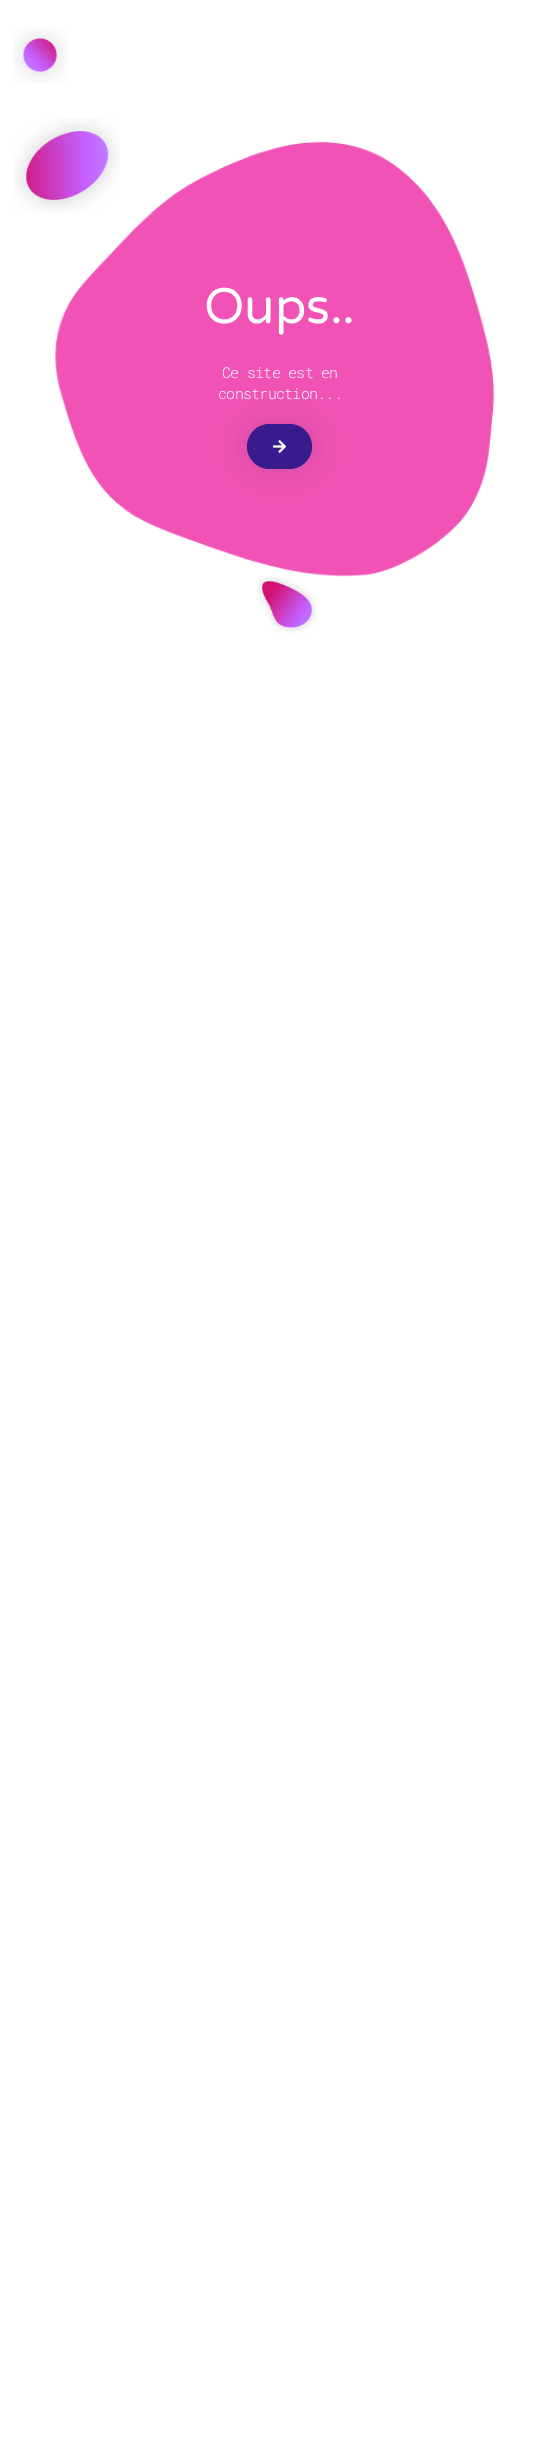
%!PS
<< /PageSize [544 2462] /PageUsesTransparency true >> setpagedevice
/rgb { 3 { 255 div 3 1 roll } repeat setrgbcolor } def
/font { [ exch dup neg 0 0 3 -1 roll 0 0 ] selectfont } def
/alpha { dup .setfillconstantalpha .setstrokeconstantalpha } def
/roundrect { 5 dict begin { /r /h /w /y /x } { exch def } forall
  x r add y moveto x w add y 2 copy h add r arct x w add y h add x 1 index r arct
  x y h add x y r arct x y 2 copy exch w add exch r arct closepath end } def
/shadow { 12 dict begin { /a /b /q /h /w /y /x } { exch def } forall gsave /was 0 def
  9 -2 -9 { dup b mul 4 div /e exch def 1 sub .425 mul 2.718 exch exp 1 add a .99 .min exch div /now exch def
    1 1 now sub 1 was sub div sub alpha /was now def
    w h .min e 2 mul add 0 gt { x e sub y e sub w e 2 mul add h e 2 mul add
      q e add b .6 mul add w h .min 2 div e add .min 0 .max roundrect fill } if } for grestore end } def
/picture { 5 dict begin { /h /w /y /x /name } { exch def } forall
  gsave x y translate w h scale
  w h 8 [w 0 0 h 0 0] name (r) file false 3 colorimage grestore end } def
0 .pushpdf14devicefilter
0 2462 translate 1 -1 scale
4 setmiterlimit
255 255 255 rgb
0 0 544 2462 rectfill
(img/1.rgb) 13 28 55 55 picture
(img/3.rgb) 55 141 440 436 picture
(img/2.rgb) 13 118 107 95 picture
0 0 0 rgb
247 424 65 45 22.5 15 0.1 shadow
56 27 140 rgb
247 424 65 45 22.5 roundrect fill
(img/4.rgb) 272 440 14 13 picture
(img/5.rgb) 257 576 60 57 picture
/VarelaRound-Regular 50 font
255 254 254 rgb
204 323 moveto -0.25 0 (Oups..) ashow
/RobotoMono-Light 15 font
222 378 moveto -0.75 0 (Ce site est en) ashow
218 399 moveto -0.75 0 (construction...) ashow
.poppdf14devicefilter showpage
